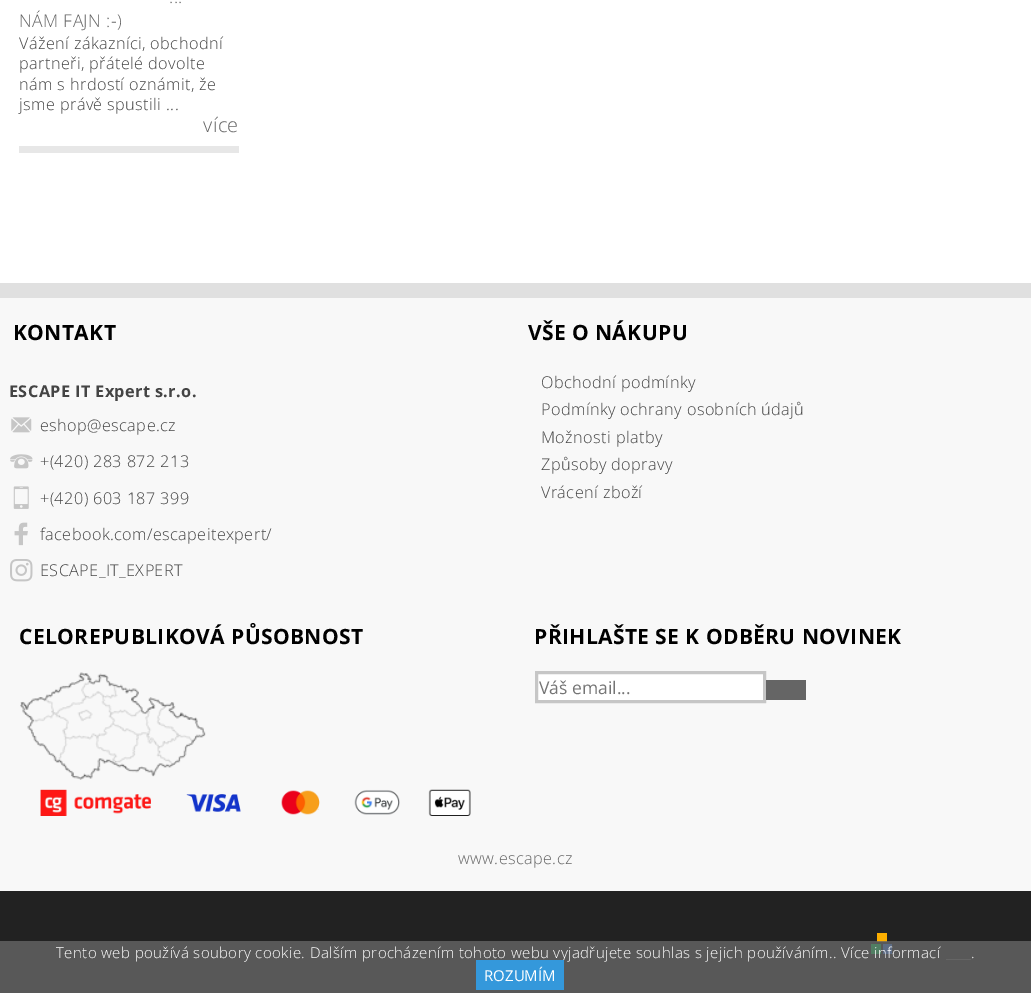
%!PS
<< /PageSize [1031 993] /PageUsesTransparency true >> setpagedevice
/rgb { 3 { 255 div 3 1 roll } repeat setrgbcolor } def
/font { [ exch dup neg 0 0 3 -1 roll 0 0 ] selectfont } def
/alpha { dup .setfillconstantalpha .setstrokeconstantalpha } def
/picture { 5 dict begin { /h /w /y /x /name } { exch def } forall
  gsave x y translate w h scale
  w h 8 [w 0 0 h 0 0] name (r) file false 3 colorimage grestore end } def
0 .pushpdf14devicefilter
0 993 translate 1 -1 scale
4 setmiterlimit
255 255 255 rgb
0 0 1031 993 rectfill
[
  [19 146 220 7 231 231 231]
  [0 298 1031 593 248 248 248]
  [0 283 1031 15 224 224 224]
] { aload pop rgb rectfill } forall
(img/1.rgb) 11 417 21 16 picture
(img/2.rgb) 10 454 23 15 picture
(img/3.rgb) 13 486 16 23 picture
(img/4.rgb) 14 522 14 24 picture
(img/5.rgb) 10 559 23 23 picture
(img/6.rgb) 20 672 186 108 picture
255 255 255 rgb
536.5 672.5 moveto 764.5 672.5 lineto 764.5 701.5 lineto 536.5 701.5 lineto closepath gsave fill grestore
198 198 198 rgb
3 setlinewidth
stroke
101 101 101 rgb
766 680 40 20 rectfill
(img/7.rgb) 40 789 431 27 picture
[
  [0 891 1031 102 34 34 34]
  [877 933 10 9 252 175 0]
  [871 944 10 10 0 226 90]
  [883 944 9 10 59 136 255]
] { aload pop rgb rectfill } forall
0.8 alpha
[
  [0 941 1031 52 101 101 101]
] { aload pop rgb rectfill } forall
1 alpha
[
  [946 959 25 1 101 101 101]
] { aload pop rgb rectfill } forall
/OpenSans-Light 17.5 font
169 3 moveto 0.4 0 (...) ashow
19 27 moveto 0.4 0 (NÁM FAJN :-\)) ashow
/OpenSans-Light 16.25 font
68 68 68 rgb
19 49 moveto 0.4 0 (Vážení zákazníci, obchodní) ashow
19 69 moveto 0.4 0 (partneři, přátelé dovolte) ashow
19 90 moveto 0.4 0 (nám s hrdostí oznámit, že) ashow
19 110 moveto 0.4 0 (jsme právě spustili ...) ashow
/OpenSans-Light 20 font
101 101 101 rgb
203 132 moveto 0.4 0 (více) ashow
/OpenSans-Bold 21 font
0 0 0 rgb
13 340 moveto 0.4 0 (KONTAKT) ashow
/OpenSans-Bold 16.25 font
68 68 68 rgb
9 397 moveto 0.4 0 (ESCAPE IT Expert s.r.o.) ashow
/OpenSans-Light 16.25 font
40 431 moveto 0.4 0 (eshop@escape.cz) ashow
40 467 moveto 0.4 0 (+\(420\) 283 872 213) ashow
40 504 moveto 0.4 0 (+\(420\) 603 187 399) ashow
40 540 moveto 0.4 0 (facebook.com/escapeitexpert/) ashow
40 576 moveto 0.4 0 (ESCAPE_IT_EXPERT) ashow
/OpenSans-Bold 21 font
0 0 0 rgb
528 340 moveto 0.4 0 (VŠE O NÁKUPU) ashow
/OpenSans-Light 16.25 font
68 68 68 rgb
541 388 moveto 0.4 0 (Obchodní podmínky) ashow
541 415 moveto 0.4 0 (Podmínky ochrany osobních údajů) ashow
541 443 moveto 0.4 0 (Možnosti platby) ashow
541 470 moveto 0.4 0 (Způsoby dopravy) ashow
541 498 moveto 0.4 0 (Vrácení zboží) ashow
/OpenSans-Bold 21 font
0 0 0 rgb
19 644 moveto 0.4 0 (CELOREPUBLIKOVÁ PŮSOBNOST) ashow
534 644 moveto 0.4 0 (PŘIHLAŠTE SE K ODBĚRU NOVINEK) ashow
/OpenSans-Regular 17.5 font
117 117 117 rgb
539 694 moveto (Váš email...) show
/OpenSans-Light 16.25 font
101 101 101 rgb
458 864 moveto 0.4 0 (www.escape.cz) ashow
/OpenSans-Light 15 font
255 255 255 rgb
56 958 moveto 0.4 0 (Tento web používá soubory cookie. Dalším procházením tohoto webu vyjadřujete souhlas s jejich používáním.. Více informací) ashow
971 958 moveto 0.4 0 (.) ashow
52 152 219 rgb
476 960 88 30 rectfill
/OpenSans-Regular 15 font
255 255 255 rgb
484 981 moveto (ROZUMÍM) show
.poppdf14devicefilter showpage
